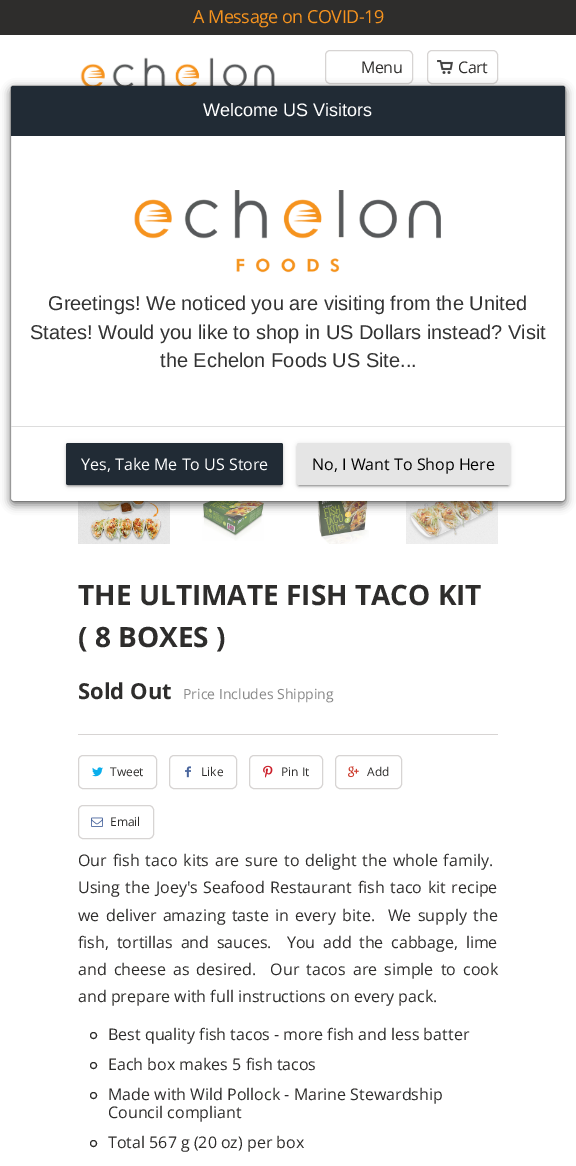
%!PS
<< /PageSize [576 1166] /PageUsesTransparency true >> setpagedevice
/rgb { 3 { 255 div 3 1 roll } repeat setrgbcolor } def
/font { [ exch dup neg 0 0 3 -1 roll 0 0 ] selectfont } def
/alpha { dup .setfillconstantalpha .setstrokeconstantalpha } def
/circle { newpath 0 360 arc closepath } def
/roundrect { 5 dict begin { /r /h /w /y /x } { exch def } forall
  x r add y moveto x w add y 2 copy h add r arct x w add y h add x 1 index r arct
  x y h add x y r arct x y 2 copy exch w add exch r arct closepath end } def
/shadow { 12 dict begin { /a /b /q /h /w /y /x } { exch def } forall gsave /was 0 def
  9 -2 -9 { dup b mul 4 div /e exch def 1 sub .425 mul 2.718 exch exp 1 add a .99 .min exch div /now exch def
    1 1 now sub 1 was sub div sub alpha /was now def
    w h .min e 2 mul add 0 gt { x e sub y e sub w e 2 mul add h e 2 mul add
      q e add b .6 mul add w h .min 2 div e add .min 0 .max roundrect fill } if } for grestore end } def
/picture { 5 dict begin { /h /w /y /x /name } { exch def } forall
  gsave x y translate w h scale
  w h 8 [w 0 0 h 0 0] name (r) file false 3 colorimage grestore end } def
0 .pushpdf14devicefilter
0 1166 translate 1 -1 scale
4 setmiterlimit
255 255 255 rgb
0 0 576 1166 rectfill
46 45 44 rgb
0 0 576 35 rectfill
(img/1.rgb) 80 57 195 29 picture
215 212 211 rgb
325.5 50.5 87 33 4.5 roundrect stroke
(img/2.rgb) 437 60 16 14 picture
427.5 50.5 70 33 4.5 roundrect stroke
(img/4.rgb) 78 501 92 43 picture
(img/5.rgb) 202 501 62 40 picture
(img/6.rgb) 316 501 53 43 picture
(img/7.rgb) 406 501 92 43 picture
0 0 0 rgb
10 88 556 417 4 4.5 0.5 shadow
255 255 255 rgb
11 86 554 415 3 roundrect fill
0.2 alpha
0 0 0 rgb
10.5 85.5 555 416 3.5 roundrect stroke
1 alpha
33 43 53 rgb
13 86 moveto 563 86 lineto 564 86 565 87 565 88 curveto 565 136 lineto 11 136 lineto 11 88 lineto 11 87 12 86 13 86 curveto closepath fill
(img/3.rgb) 134 190 307 83 picture
221 221 221 rgb
11 426 554 1 rectfill
0 0 0 rgb
66 444 217 42 2 2.5 0.12 shadow
68 448 213 38 0 0.5 0.2 shadow
66 445 217 42 2 1 0.14 shadow
33 43 53 rgb
66 443 217 42 2 roundrect fill
0 0 0 rgb
297 444 213 42 2 2.5 0.12 shadow
299 448 209 38 0 0.5 0.2 shadow
297 445 213 42 2 1 0.14 shadow
229 229 229 rgb
297 443 213 42 2 roundrect fill
215 212 211 rgb
78 734 420 1 rectfill
78.5 755.5 78 33 4.5 roundrect stroke
(img/8.rgb) 92 767 11 10 picture
169.5 755.5 67 33 4.5 roundrect stroke
(img/9.rgb) 185 766 6 12 picture
249.5 755.5 73 33 4.5 roundrect stroke
(img/10.rgb) 263 765 10 13 picture
335.5 755.5 66 33 4.5 roundrect stroke
(img/11.rgb) 348 766 11 12 picture
78.5 805.5 75 33 4.5 roundrect stroke
(img/12.rgb) 91 817 12 10 picture
46 45 44 rgb
93.5 1035.5 3 circle stroke
93.5 1065.5 3 circle stroke
93.5 1095.5 3 circle stroke
93.5 1143.5 3 circle stroke
/OpenSans-Regular 18 font
246 147 30 rgb
193 23 moveto -0.5 0 (A Message on COVID-19) ashow
/OpenSans-Regular 16 font
46 45 44 rgb
361 73 moveto -0.5 0 (Menu) ashow
458 73 moveto -0.5 0 (Cart) ashow
/LiberationSans-Regular 18 font
255 255 255 rgb
203 116 moveto (Welcome US Visitors) show
/LiberationSans-Regular 20 font
51 51 51 rgb
[
  [(Greetings! We noticed you are visiting from the United) 48 310]
  [(States! Would you like to shop in US Dollars instead? Visit) 30 339]
  [(the Echelon Foods US Site...) 160 367]
] { aload pop moveto show } forall
/OpenSans-Regular 16 font
255 255 255 rgb
81 470 moveto (Yes, Take Me To US Store) show
0 0 0 rgb
312 470 moveto (No, I Want To Shop Here) show
/OpenSans-Bold 28 font
46 45 44 rgb
78 605 moveto (THE ULTIMATE FISH TACO KIT) show
78 647 moveto (\( 8 BOXES \)) show
/OpenSans-Bold 22 font
78 699 moveto (Sold Out) show
/OpenSans-Regular 14 font
136 136 136 rgb
183 699 moveto (Price Includes Shipping) show
/OpenSans-Regular 12 font
46 45 44 rgb
[
  [(Tweet) 110 776]
  [(Like) 201 776]
  [(Pin It) 281 776]
  [(Add) 367 776]
  [(Email) 110 826]
] { aload pop moveto show } forall
/OpenSans-Regular 16 font
78 866 moveto 1.75 0 32 (Our fish taco kits are sure to delight the whole family.) widthshow
78 893 moveto 1.5 0 32 (Using the Joey's Seafood Restaurant fish taco kit recipe) widthshow
78 921 moveto 2.25 0 32 (we deliver amazing taste in every bite.  We supply the) widthshow
78 948 moveto 3.5 0 32 (fish, tortillas and sauces.  You add the cabbage, lime) widthshow
78 975 moveto 2.9 0 32 (and cheese as desired.  Our tacos are simple to cook) widthshow
[
  [(and prepare with full instructions on every pack.) 78 1002]
  [(Best quality fish tacos - more fish and less batter) 108 1040]
  [(Each box makes 5 fish tacos) 108 1070]
  [(Made with Wild Pollock - Marine Stewardship) 108 1100]
  [(Council compliant) 108 1118]
  [(Total 567 g \(20 oz\) per box) 108 1148]
] { aload pop moveto show } forall
.poppdf14devicefilter showpage
